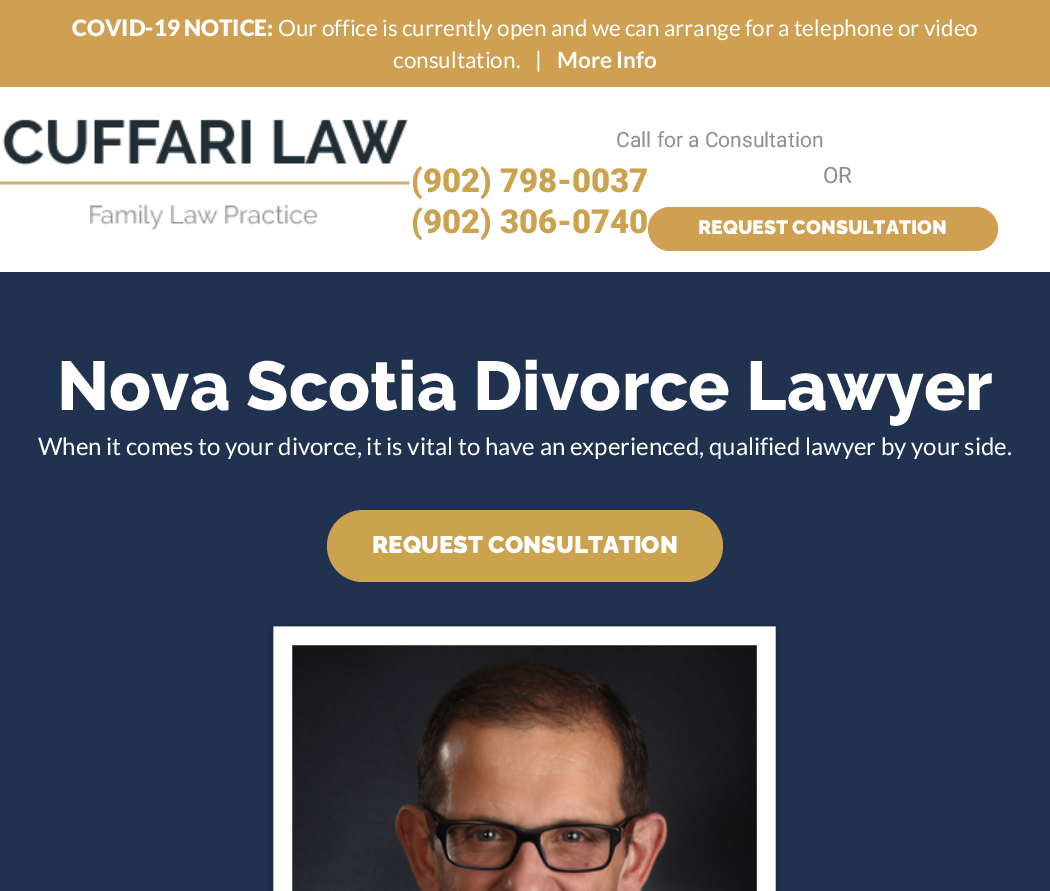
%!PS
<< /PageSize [1050 891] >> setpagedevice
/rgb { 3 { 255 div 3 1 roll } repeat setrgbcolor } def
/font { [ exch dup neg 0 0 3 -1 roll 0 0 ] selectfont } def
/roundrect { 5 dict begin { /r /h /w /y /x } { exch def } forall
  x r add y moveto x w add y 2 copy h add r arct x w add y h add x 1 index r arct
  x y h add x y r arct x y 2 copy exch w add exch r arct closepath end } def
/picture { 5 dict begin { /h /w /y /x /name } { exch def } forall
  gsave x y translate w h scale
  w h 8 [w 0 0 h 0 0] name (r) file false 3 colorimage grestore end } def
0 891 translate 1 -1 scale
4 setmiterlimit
32 50 79 rgb
0 0 1050 891 rectfill
207 160 81 rgb
0 0 1050 87 rectfill
255 255 255 rgb
0 87 1050 185 rectfill
(img/1.rgb) 0 119 410 111 picture
207 160 81 rgb
648 207 350 44 22 roundrect fill
203 162 77 rgb
327 510 396 72 36 roundrect fill
(img/2.rgb) 267 623 515 268 picture
/Lato-Black 22.5 font
255 255 255 rgb
72 36 moveto (COVID-19 NOTICE:) show
/Lato-Regular 22.5 font
[
  [(Our office is currently open and we can arrange for a telephone or video) 278 36]
  [(consultation.) 393 68]
  [(|) 535 68]
] { aload pop moveto show } forall
/Lato-Bold 22.5 font
557 68 moveto (More Info) show
/Roboto-Regular 21 font
140 144 147 rgb
616 147 moveto (Call for a Consultation) show
/Roboto-Black 33 font
203 162 77 rgb
411 192 moveto (\(902\) 798-0037) show
411 233 moveto (\(902\) 306-0740) show
/Roboto-Regular 22.5 font
140 144 147 rgb
823 183 moveto (OR) show
/Raleway-Black 19.5 font
255 255 255 rgb
698 234 moveto (REQUEST CONSULTATION) show
/Raleway-ExtraBold 69 font
57 410 moveto (Nova Scotia Divorce Lawyer) show
/Lato-Regular 24 font
38 455 moveto (When it comes to your divorce, it is vital to have an experienced, qualified lawyer by your side.) show
/Raleway-Black 24 font
372 553 moveto (REQUEST CONSULTATION) show
showpage
